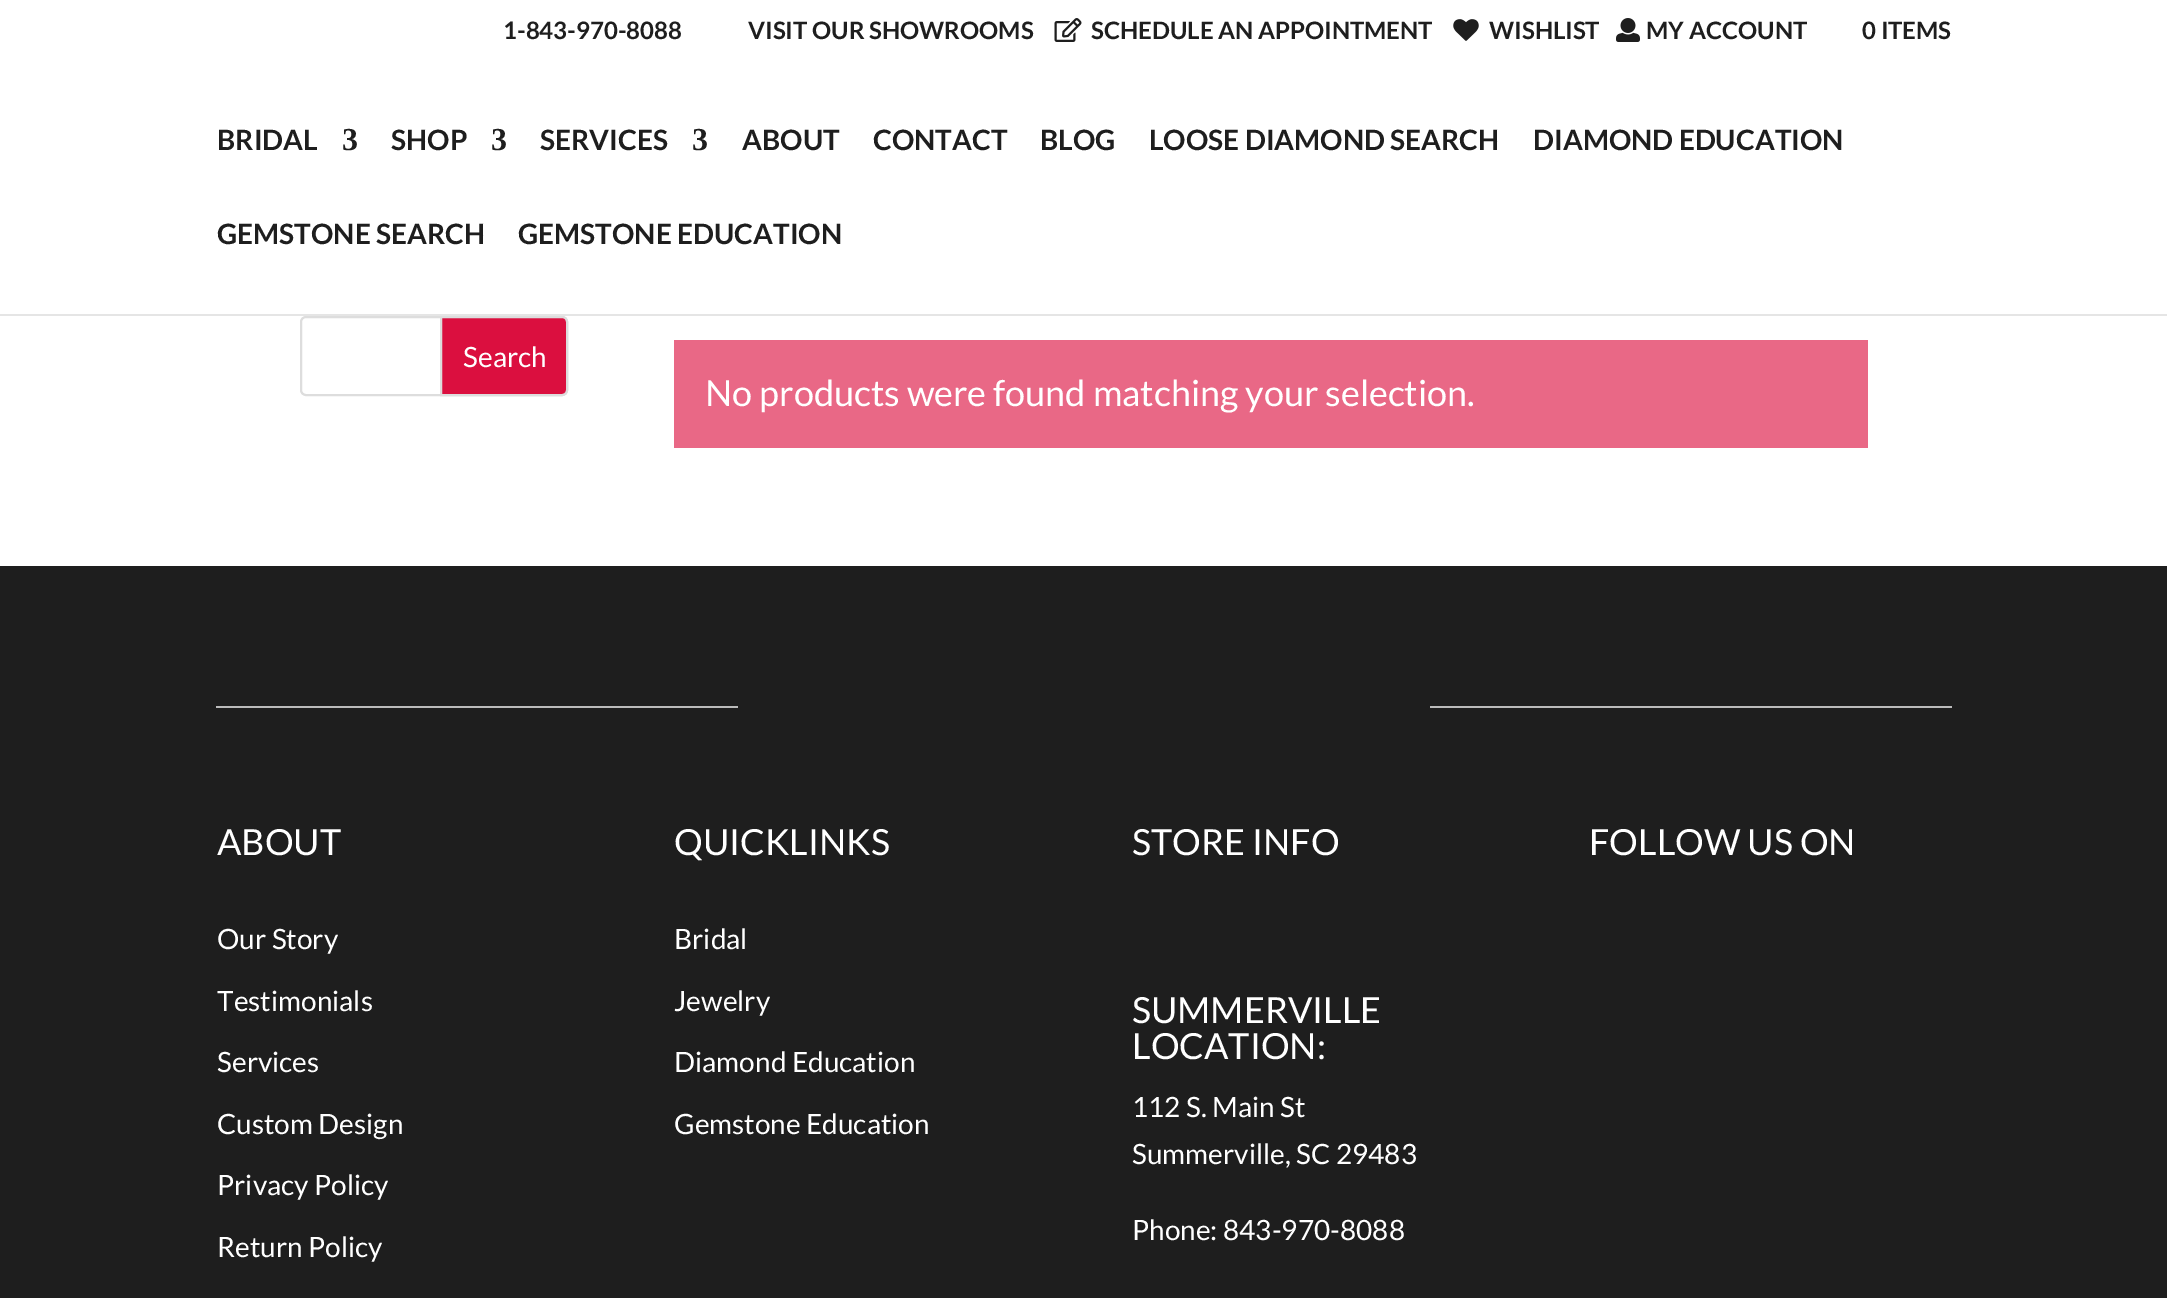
%!PS
<< /PageSize [2167 1298] /PageUsesTransparency true >> setpagedevice
/rgb { 3 { 255 div 3 1 roll } repeat setrgbcolor } def
/font { [ exch dup neg 0 0 3 -1 roll 0 0 ] selectfont } def
/alpha { dup .setfillconstantalpha .setstrokeconstantalpha } def
/roundrect { 5 dict begin { /r /h /w /y /x } { exch def } forall
  x r add y moveto x w add y 2 copy h add r arct x w add y h add x 1 index r arct
  x y h add x y r arct x y 2 copy exch w add exch r arct closepath end } def
/picture { 5 dict begin { /h /w /y /x /name } { exch def } forall
  gsave x y translate w h scale
  w h 8 [w 0 0 h 0 0] name (r) file false 3 colorimage grestore end } def
0 .pushpdf14devicefilter
0 1298 translate 1 -1 scale
4 setmiterlimit
255 255 255 rgb
0 0 2167 1298 rectfill
(img/1.rgb) 1054 18 28 24 picture
(img/2.rgb) 1453 19 26 22 picture
(img/3.rgb) 1616 18 24 24 picture
0.1 alpha
0 0 0 rgb
0 314 2167 2 rectfill
1 alpha
221 221 221 rgb
2 setlinewidth
301 317 266 78 5 roundrect stroke
219 15 63 rgb
441 317 moveto 562 317 lineto 565 317 567 319 567 322 curveto 567 390 lineto 567 393 565 395 562 395 curveto 441 395 lineto closepath gsave fill grestore
221 221 221 rgb
stroke
[
  [674 340 1194 108 233 104 134]
  [0 566 2167 732 30 30 30]
  [216 706 1736 2 187 187 187]
  [738 706 692 2 30 30 30]
] { aload pop rgb rectfill } forall
/Lato-Bold 24 font
[
  [(1-843-970-8088) 503 39]
  [(VISIT OUR SHOWROOMS) 748 39]
  [(SCHEDULE AN APPOINTMENT) 1091 39]
  [(WISHLIST) 1489 39]
  [(MY ACCOUNT) 1646 39]
  [(0 ITEMS) 1862 39]
] { aload pop moveto show } forall
/Lato-Bold 28 font
217 150 moveto (BRIDAL) show
/LiberationSerif-Bold 32 font
342 150 moveto (3) show
/Lato-Bold 28 font
391 150 moveto (SHOP) show
/LiberationSerif-Bold 32 font
491 150 moveto (3) show
/Lato-Bold 28 font
540 150 moveto (SERVICES) show
/LiberationSerif-Bold 32 font
692 150 moveto (3) show
/Lato-Bold 28 font
[
  [(ABOUT) 742 150]
  [(CONTACT) 873 150]
  [(BLOG) 1040 150]
  [(LOOSE DIAMOND SEARCH) 1149 150]
  [(DIAMOND EDUCATION) 1533 150]
  [(GEMSTONE SEARCH) 217 244]
  [(GEMSTONE EDUCATION) 518 244]
] { aload pop moveto show } forall
/Lato-Regular 28 font
255 255 255 rgb
463 367 moveto (Search) show
/Lato-Regular 36 font
705 406 moveto (No products were found matching your selection.) show
217 855 moveto (ABOUT) show
/Lato-Regular 28 font
[
  [(Our Story) 217 949]
  [(Testimonials) 217 1011]
  [(Services) 217 1072]
  [(Custom Design) 217 1134]
  [(Privacy Policy) 217 1195]
  [(Return Policy) 217 1257]
] { aload pop moveto show } forall
/Lato-Regular 36 font
674 855 moveto (QUICKLINKS) show
/Lato-Regular 28 font
[
  [(Bridal) 674 949]
  [(Jewelry) 674 1011]
  [(Diamond Education) 674 1072]
  [(Gemstone Education) 674 1134]
] { aload pop moveto show } forall
/Lato-Regular 36 font
[
  [(STORE INFO) 1132 855]
  [(SUMMERVILLE) 1132 1023]
  [(LOCATION:) 1132 1059]
] { aload pop moveto show } forall
/Lato-Regular 28 font
[
  [(112 S. Main St) 1132 1117]
  [(Summerville, SC 29483) 1132 1164]
  [(Phone: 843-970-8088) 1132 1240]
] { aload pop moveto show } forall
/Lato-Regular 36 font
1589 855 moveto (FOLLOW US ON) show
.poppdf14devicefilter showpage
